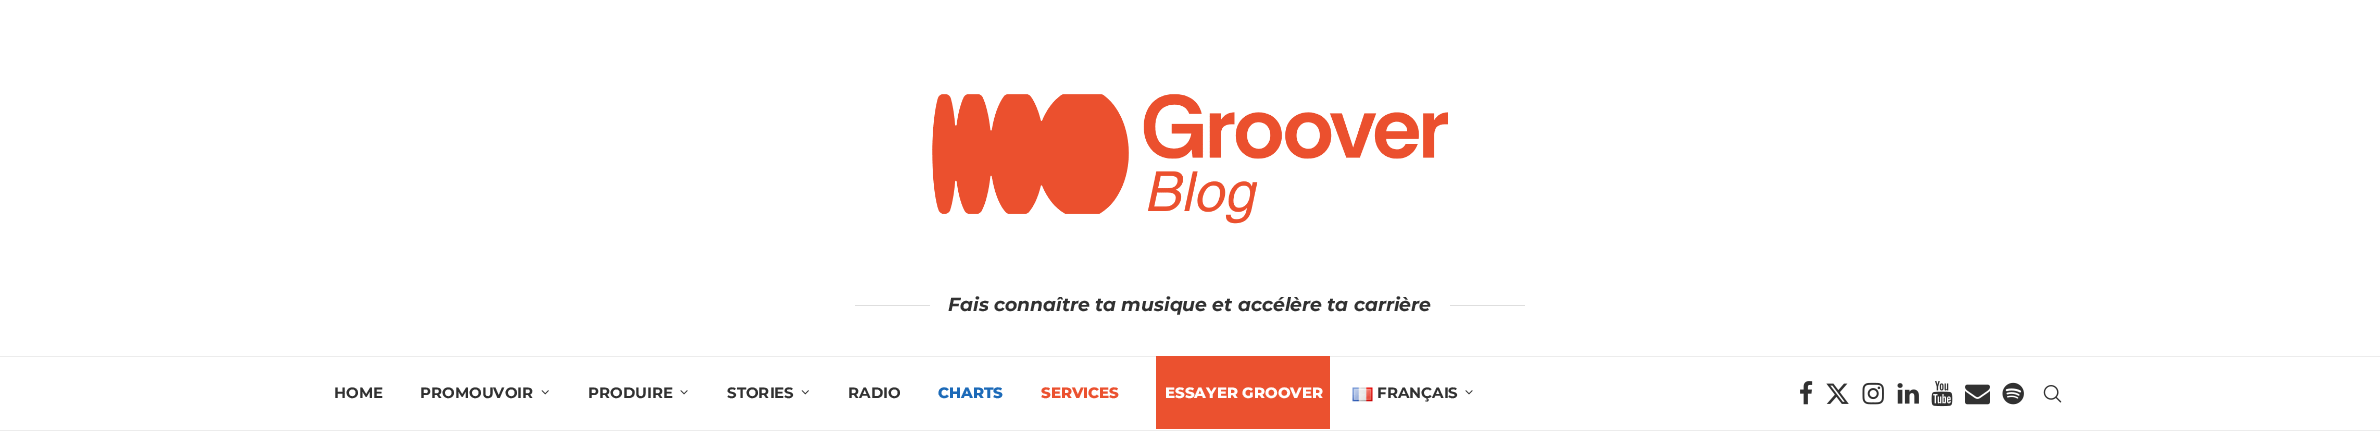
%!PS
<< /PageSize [2380 433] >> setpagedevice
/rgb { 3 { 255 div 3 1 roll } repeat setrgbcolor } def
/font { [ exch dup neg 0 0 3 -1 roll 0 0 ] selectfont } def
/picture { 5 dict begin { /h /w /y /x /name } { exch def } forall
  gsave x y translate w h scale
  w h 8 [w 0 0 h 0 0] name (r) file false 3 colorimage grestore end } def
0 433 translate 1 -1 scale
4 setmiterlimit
255 255 255 rgb
0 0 2380 433 rectfill
(img/1.rgb) 932 94 516 130 picture
[
  [855 305 75 1 222 222 222]
  [1450 305 75 1 222 222 222]
  [0 356 2380 1 236 236 236]
  [0 430 2380 1 236 236 236]
] { aload pop rgb rectfill } forall
(img/2.rgb) 541 390 8 5 picture
(img/3.rgb) 680 390 8 5 picture
(img/4.rgb) 801 390 8 5 picture
235 81 47 rgb
1156 356 174 73 rectfill
(img/5.rgb) 1352 387 21 15 picture
(img/6.rgb) 1465 390 8 5 picture
(img/7.rgb) 1800 381 13 24 picture
(img/8.rgb) 1826 383 23 21 picture
(img/9.rgb) 1862 382 22 23 picture
(img/10.rgb) 1897 383 22 21 picture
(img/11.rgb) 1931 381 22 26 picture
(img/12.rgb) 1965 384 25 21 picture
(img/13.rgb) 2002 382 22 23 picture
(img/14.rgb) 2043 385 19 18 picture
/Montserrat-BoldItalic 18.75 font
49 49 49 rgb
948 311 moveto (Fais connaître ta musique et accélère ta carrière) show
/Montserrat-Bold 15 font
[
  [(HOME) 334 398]
  [(PROMOUVOIR) 420 398]
  [(PRODUIRE) 588 398]
  [(STORIES) 727 398]
  [(RADIO) 848 398]
] { aload pop moveto show } forall
/Montserrat-ExtraBold 15 font
28 106 184 rgb
938 398 moveto (CHARTS) show
235 81 47 rgb
1041 398 moveto (SERVICES) show
254 253 253 rgb
1165 398 moveto (ESSAYER GROOVER) show
/Montserrat-Bold 15 font
49 49 49 rgb
1377 398 moveto (FRANÇAIS) show
showpage
